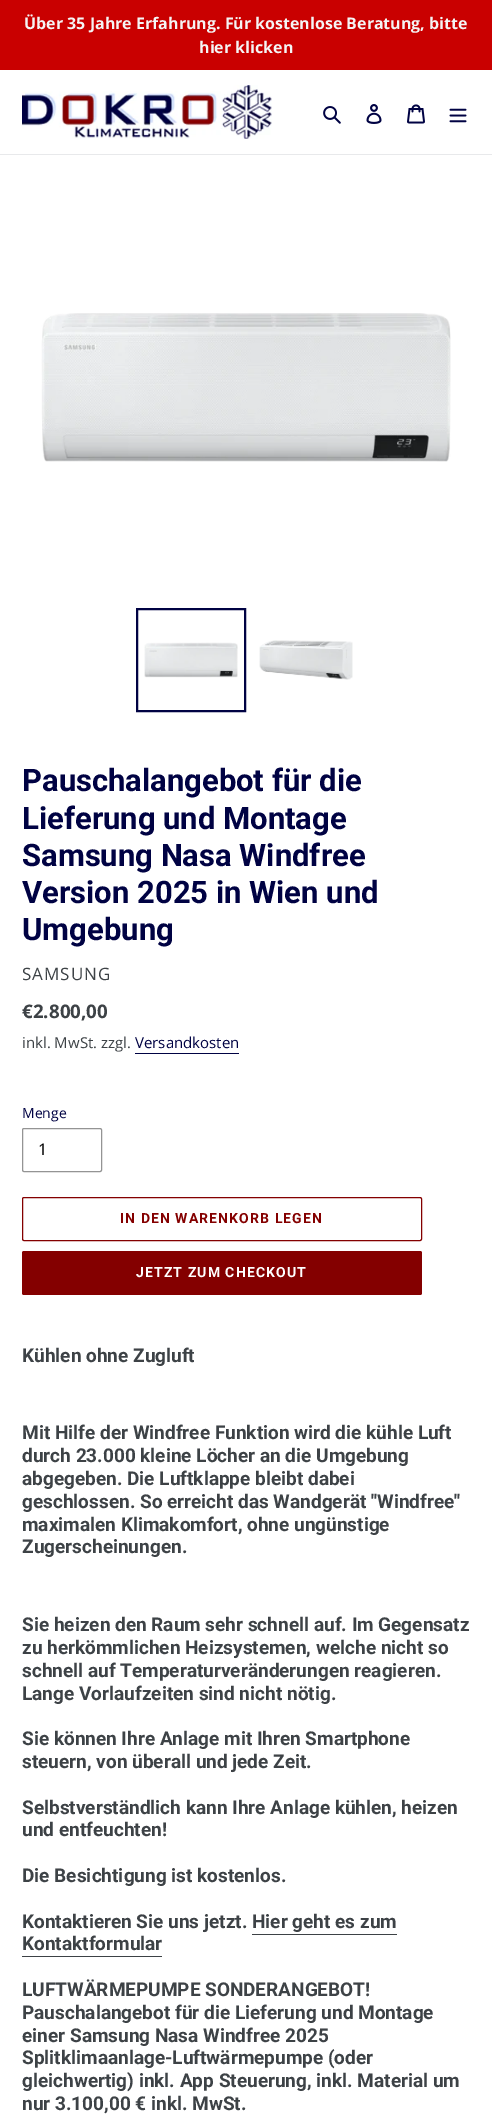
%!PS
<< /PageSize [492 2122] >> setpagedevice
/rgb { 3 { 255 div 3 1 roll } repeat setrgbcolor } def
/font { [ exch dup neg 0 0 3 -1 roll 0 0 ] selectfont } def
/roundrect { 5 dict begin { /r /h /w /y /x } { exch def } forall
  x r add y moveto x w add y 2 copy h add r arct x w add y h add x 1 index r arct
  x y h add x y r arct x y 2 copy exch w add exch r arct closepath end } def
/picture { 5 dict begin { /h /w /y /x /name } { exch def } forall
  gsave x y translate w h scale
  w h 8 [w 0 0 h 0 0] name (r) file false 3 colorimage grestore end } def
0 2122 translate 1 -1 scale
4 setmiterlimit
255 255 255 rgb
0 0 492 2122 rectfill
201 0 0 rgb
0 0 492 70 rectfill
232 233 235 rgb
0 154 492 1 rectfill
(img/1.rgb) 22 85 250 54 picture
(img/2.rgb) 323 106 18 18 picture
(img/3.rgb) 366 104 16 20 picture
(img/4.rgb) 407 104 18 20 picture
(img/5.rgb) 449 108 18 15 picture
(img/6.rgb) 41 313 410 149 picture
0 2 67 rgb
2 setlinewidth
137 609 108 102 rectstroke
(img/7.rgb) 144 642 94 36 picture
(img/8.rgb) 259 640 94 40 picture
135 1053 104 1 rectfill
148 148 148 rgb
1 setlinewidth
22.5 1128.5 79 43 1.5 roundrect stroke
132 0 0 rgb
22.5 1197.5 399 43 1.5 roundrect stroke
22 1251 400 44 2 roundrect fill
61 66 70 rgb
252 1934 145 1 rectfill
22 1956 140 1 rectfill
/OpenSans-Bold 16 font
245 245 245 rgb
24 29 moveto (Über 35 Jahre Erfahrung. Für kostenlose Beratung, bitte) show
199 53 moveto (hier klicken) show
/Roboto-Bold 31 font
0 2 67 rgb
[
  [(Pauschalangebot für die) 22 791]
  [(Lieferung und Montage) 22 829]
  [(Samsung Nasa Windfree) 22 866]
  [(Version 2025 in Wien und) 22 903]
  [(Umgebung) 22 940]
] { aload pop moveto show } forall
/OpenSans-Regular 17 font
61 66 70 rgb
22 980 moveto 1 0 (SAMSUNG) ashow
/OpenSans-Bold 18.75 font
22 1018 moveto (€2.800,00) show
/OpenSans-Regular 15 font
22 1048 moveto (inkl. MwSt. zzgl.) show
0 2 67 rgb
135 1048 moveto (Versandkosten) show
/OpenSans-Regular 14 font
22 1118 moveto (Menge) show
/OpenSans-Regular 16 font
0 0 0 rgb
38 1155 moveto (1) show
/Roboto-Bold 14 font
132 0 0 rgb
120 1223 moveto 1.1 0 (IN DEN WARENKORB LEGEN) ashow
255 255 255 rgb
136 1277 moveto 1.1 0 (JETZT ZUM CHECKOUT) ashow
/Roboto-Bold 19 font
61 66 70 rgb
[
  [(Kühlen ohne Zugluft) 22 1362]
  [(Mit Hilfe der Windfree Funktion wird die kühle Luft) 22 1439]
  [(durch 23.000 kleine Löcher an die Umgebung) 22 1462]
  [(abgegeben. Die Luftklappe bleibt dabei) 22 1485]
  [(geschlossen. So erreicht das Wandgerät "Windfree") 22 1508]
  [(maximalen Klimakomfort, ohne ungünstige) 22 1531]
  [(Zugerscheinungen.) 22 1553]
  [(Sie heizen den Raum sehr schnell auf. Im Gegensatz) 22 1631]
  [(zu herkömmlichen Heizsystemen, welche nicht so) 22 1654]
  [(schnell auf Temperaturveränderungen reagieren.) 22 1677]
  [(Lange Vorlaufzeiten sind nicht nötig.) 22 1700]
  [(Sie können Ihre Anlage mit Ihren Smartphone) 22 1745]
  [(steuern, von überall und jede Zeit.) 22 1768]
  [(Selbstverständlich kann Ihre Anlage kühlen, heizen) 22 1814]
  [(und entfeuchten!) 22 1836]
  [(Die Besichtigung ist kostenlos.) 22 1882]
  [(Kontaktieren Sie uns jetzt. Hier geht es zum) 22 1928]
  [(Kontaktformular) 22 1950]
  [(LUFTWÄRMEPUMPE SONDERANGEBOT!) 22 1996]
  [(Pauschalangebot für die Lieferung und Montage) 22 2019]
  [(einer Samsung Nasa Windfree 2025) 22 2042]
  [(Splitklimaanlage-Luftwärmepumpe \(oder) 22 2064]
  [(gleichwertig\) inkl. App Steuerung, inkl. Material um) 22 2087]
  [(nur 3.100,00 € inkl. MwSt.) 22 2110]
] { aload pop moveto show } forall
showpage
